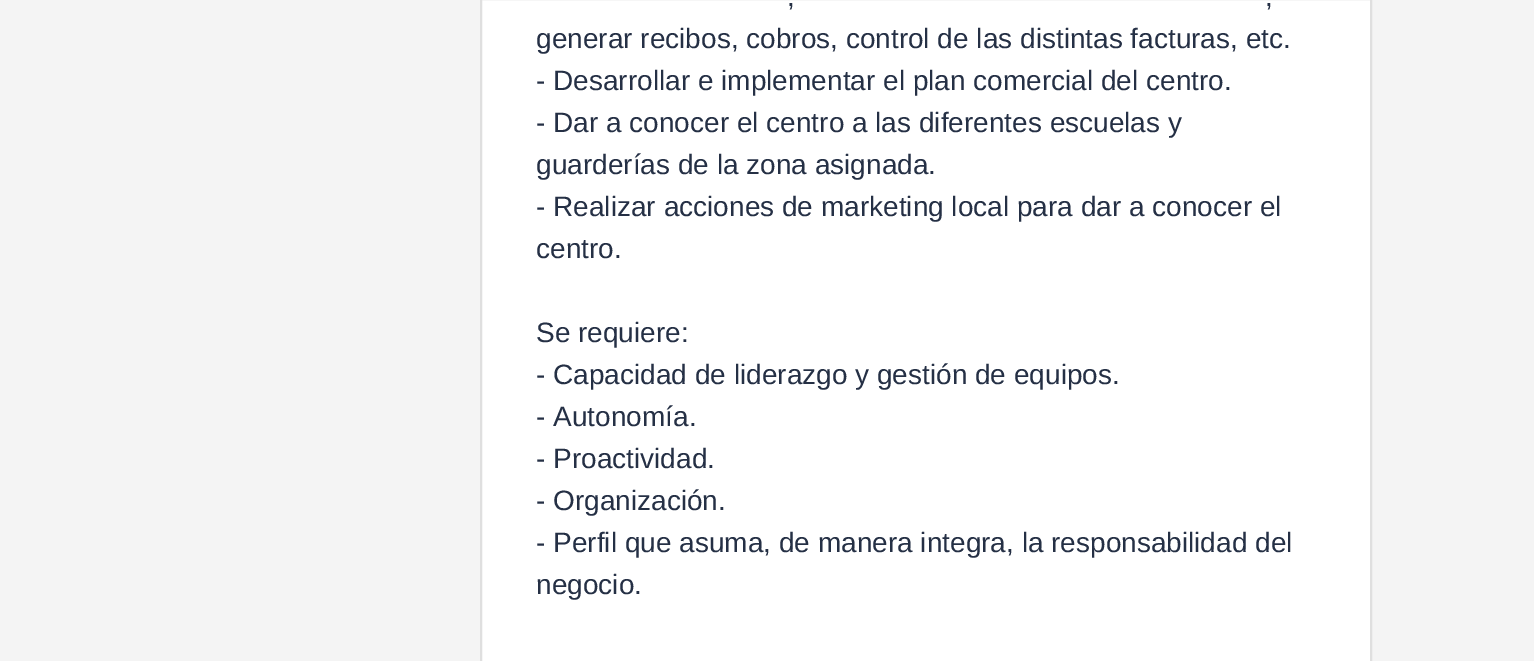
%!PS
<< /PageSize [1534 661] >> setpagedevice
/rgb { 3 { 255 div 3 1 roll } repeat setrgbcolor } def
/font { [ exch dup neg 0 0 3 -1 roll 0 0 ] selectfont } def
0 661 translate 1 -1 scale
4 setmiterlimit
244 244 244 rgb
0 0 1534 661 rectfill
255 255 255 rgb
481 -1 moveto 1371 -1 lineto 1371 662 lineto 481 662 lineto closepath gsave fill grestore
223 223 223 rgb
2 setlinewidth
stroke
/LiberationSans-Regular 28 font
37 48 69 rgb
[
  [(,) 787 6]
  [(,) 1265 6]
  [(generar recibos, cobros, control de las distintas facturas, etc.) 536 48]
  [(- Desarrollar e implementar el plan comercial del centro.) 536 90]
  [(- Dar a conocer el centro a las diferentes escuelas y) 536 132]
  [(guarderías de la zona asignada.) 536 174]
  [(- Realizar acciones de marketing local para dar a conocer el) 536 216]
  [(centro.) 536 258]
  [(Se requiere:) 536 342]
  [(- Capacidad de liderazgo y gestión de equipos.) 536 384]
  [(- Autonomía.) 536 426]
  [(- Proactividad.) 536 468]
  [(- Organización.) 536 510]
  [(- Perfil que asuma, de manera integra, la responsabilidad del) 536 552]
  [(negocio.) 536 594]
] { aload pop moveto show } forall
showpage
